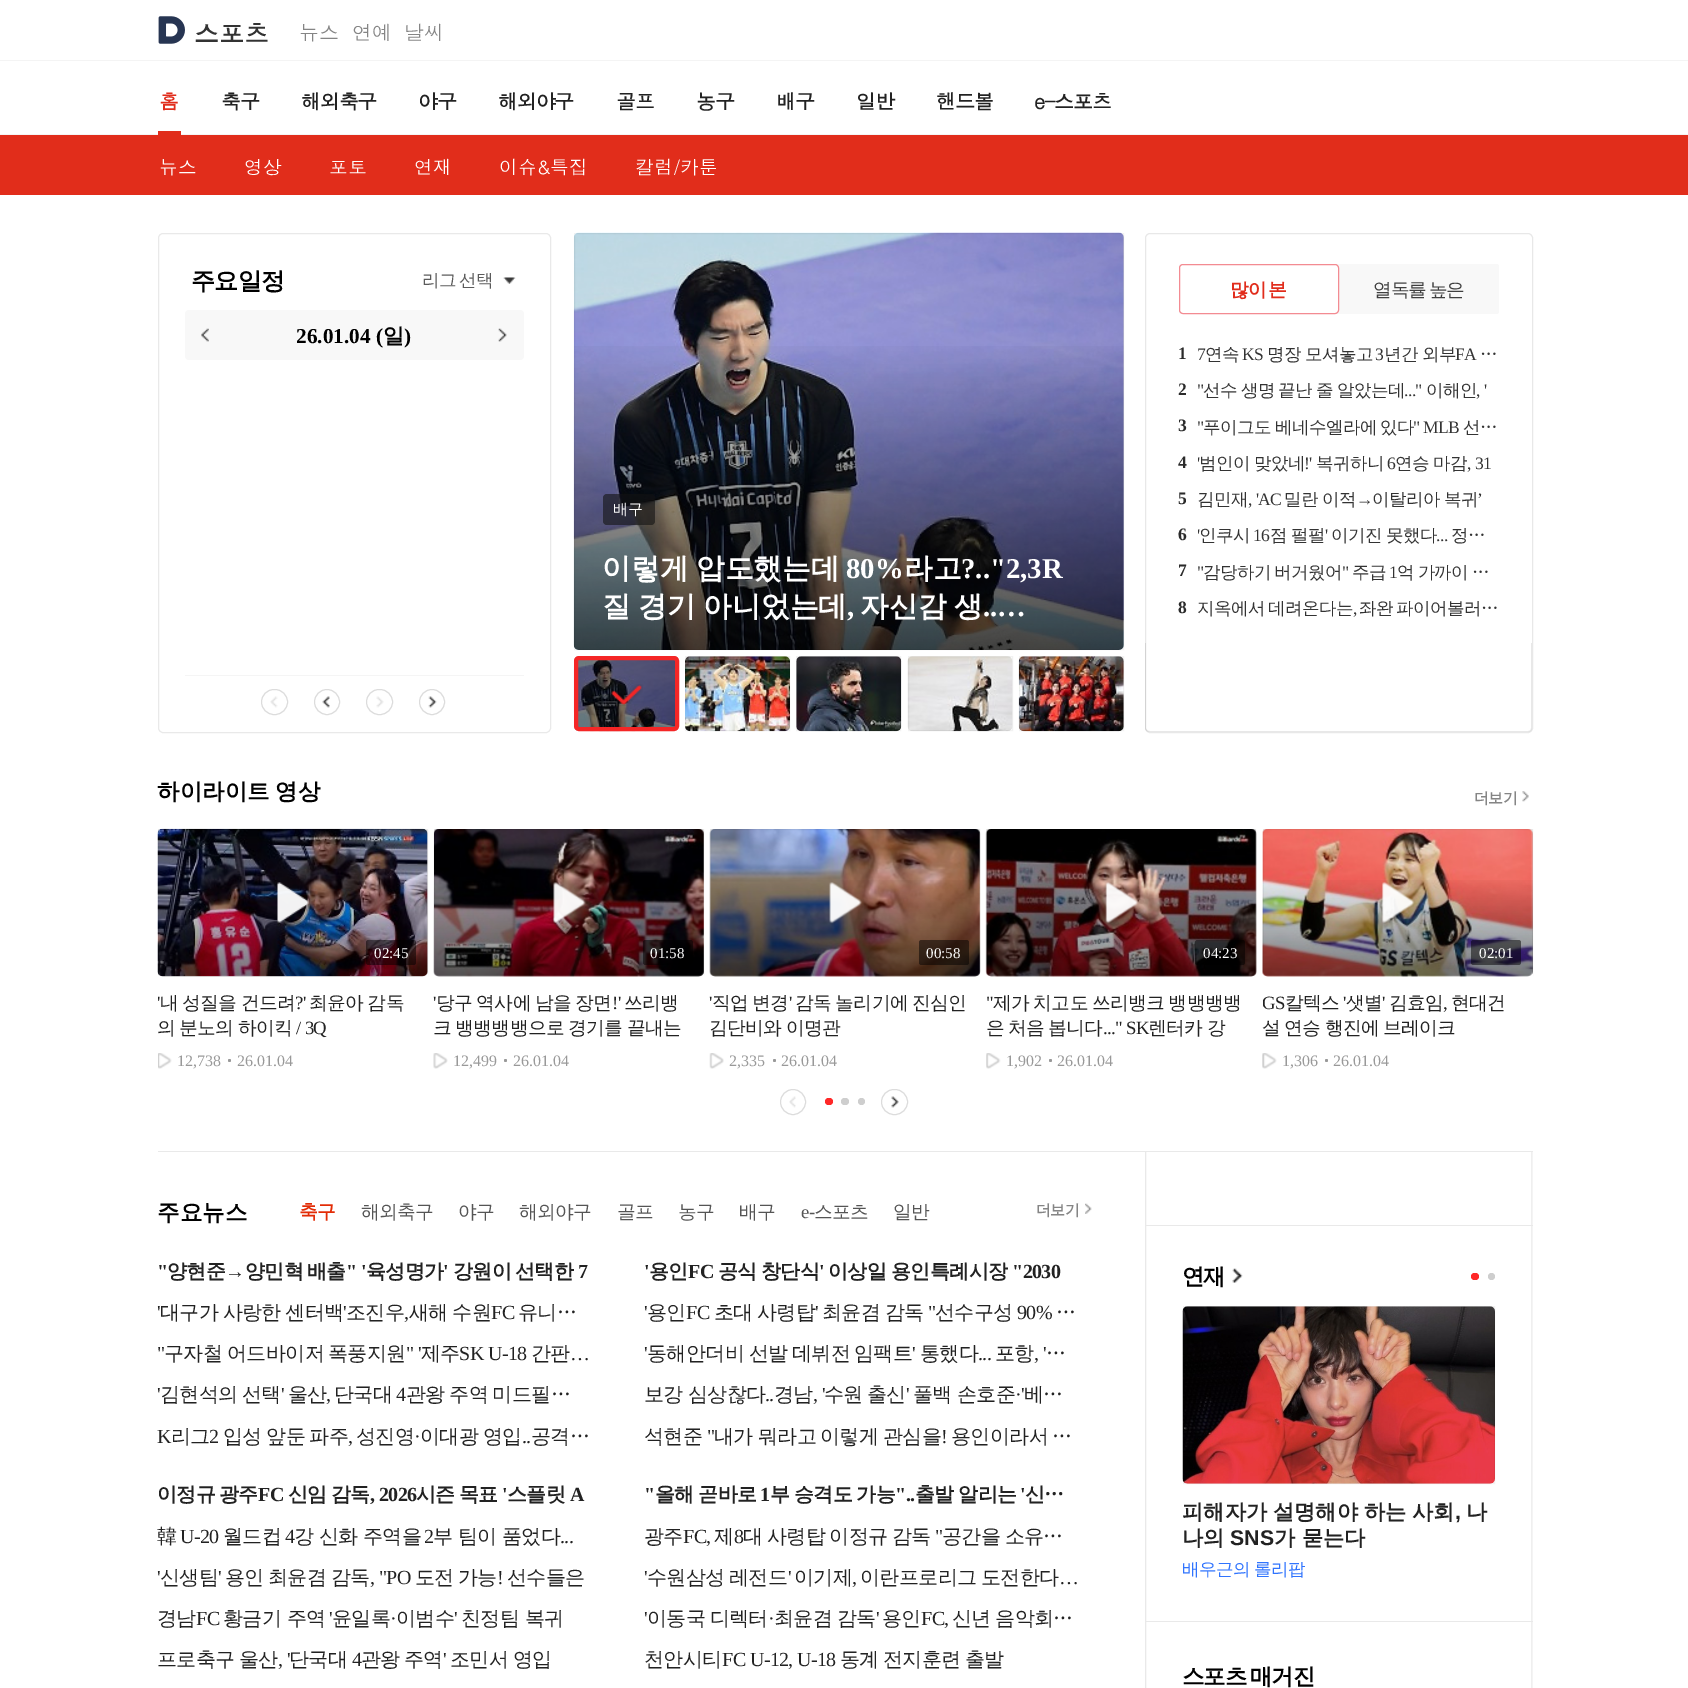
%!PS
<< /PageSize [1688 1688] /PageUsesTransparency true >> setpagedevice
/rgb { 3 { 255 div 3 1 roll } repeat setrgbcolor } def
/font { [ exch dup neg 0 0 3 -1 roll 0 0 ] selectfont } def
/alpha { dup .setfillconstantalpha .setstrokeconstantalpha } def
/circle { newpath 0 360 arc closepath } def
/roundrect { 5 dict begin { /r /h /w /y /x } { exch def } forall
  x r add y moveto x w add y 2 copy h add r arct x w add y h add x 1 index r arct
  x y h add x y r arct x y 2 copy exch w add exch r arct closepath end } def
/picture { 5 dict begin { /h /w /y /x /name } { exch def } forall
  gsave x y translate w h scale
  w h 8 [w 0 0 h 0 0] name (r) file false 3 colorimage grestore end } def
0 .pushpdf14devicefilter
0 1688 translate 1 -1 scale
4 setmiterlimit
255 255 255 rgb
0 0 1688 1688 rectfill
(img/1.rgb) 158 16 27 28 picture
[
  [0 60 1688 1 244 244 244]
  [0 134 1688 1 244 244 244]
  [158 131 23 4 225 45 27]
  [0 135 1688 60 225 45 27]
] { aload pop rgb rectfill } forall
233 233 233 rgb
158.5 233.5 392 499 4.5 roundrect stroke
(img/2.rgb) 503 277 13 7 picture
248 248 248 rgb
185 310 339 50 4 roundrect fill
(img/3.rgb) 201 328 8 14 picture
(img/4.rgb) 498 328 9 14 picture
245 245 245 rgb
185 675 339 1 rectfill
220 220 220 rgb
261.5 689.5 26 25 12.5 roundrect stroke
(img/5.rgb) 270 696 8 12 picture
327 702 12.5 circle stroke
(img/6.rgb) 322 696 8 12 picture
366.5 689.5 26 25 12.5 roundrect stroke
(img/7.rgb) 376 696 8 12 picture
432 702 12.5 circle stroke
(img/8.rgb) 428 696 9 12 picture
(img/9.rgb) 573 232 551 418 picture
(img/10.rgb) 573 346 551 304 picture
0.1 alpha
0 0 0 rgb
574 233 550 417 5 roundrect fill
0.05 alpha
574.5 233.5 549 416 rectstroke
0.6 alpha
18 18 18 rgb
603 494 52 31 4 roundrect fill
1 alpha
(img/11.rgb) 573 656 106 76 picture
0.5 alpha
0 0 0 rgb
576 658 101 71 3 roundrect fill
1 alpha
245 38 38 rgb
4 setlinewidth
576 658 101 71 3 roundrect stroke
(img/12.rgb) 611 684 32 22 picture
(img/13.rgb) 685 656 105 76 picture
0.05 alpha
0 0 0 rgb
1 setlinewidth
685.5 656.5 104 74 rectstroke
1 alpha
(img/14.rgb) 796 656 106 76 picture
0.05 alpha
796.5 656.5 104 74 rectstroke
1 alpha
(img/15.rgb) 907 656 106 76 picture
0.05 alpha
908.5 656.5 104 74 rectstroke
1 alpha
(img/16.rgb) 1018 656 106 76 picture
0.05 alpha
1019.5 656.5 104 74 rectstroke
1 alpha
232 232 232 rgb
1145.5 233.5 387 499 4.5 roundrect stroke
248 248 248 rgb
1179 264 320 50 2.5 roundrect fill
255 255 255 rgb
1179.5 264.5 159 49 3.5 roundrect gsave fill grestore
243 139 146 rgb
stroke
0.09 alpha
0 0 0 rgb
1145 643 moveto 1145 728 lineto 1145 730 1147 732 1150 732 curveto 1528 732 lineto 1530 732 1532 730 1532 728 curveto 1532 643 lineto 1531 643 lineto 1531 728 lineto 1531 730 1530 731 1528 731 curveto 1150 731 lineto 1148 731 1146 730 1146 728 curveto 1146 643 lineto closepath fill
1 alpha
(img/17.rgb) 1522 791 7 11 picture
(img/18.rgb) 158 829 270 148 picture
(img/19.rgb) 157 828 271 149 picture
0.04 alpha
158 829 270 147 rectfill
0.05 alpha
158.5 829.5 269 146 rectstroke
1 alpha
(img/20.rgb) 158 880 270 97 picture
(img/21.rgb) 277 882 32 41 picture
0.5 alpha
366 940 50 25 2.5 roundrect fill
1 alpha
(img/22.rgb) 158 1053 14 16 picture
153 153 153 rgb
229.5 1060.5 1.5 circle fill
(img/23.rgb) 433 829 271 148 picture
(img/24.rgb) 434 829 270 148 picture
0.04 alpha
0 0 0 rgb
434 829 270 147 rectfill
0.05 alpha
434.5 829.5 269 146 rectstroke
1 alpha
(img/25.rgb) 433 880 271 97 picture
(img/26.rgb) 552 882 34 42 picture
0.5 alpha
643 940 50 25 2.5 roundrect fill
1 alpha
(img/27.rgb) 433 1053 15 16 picture
153 153 153 rgb
505.5 1060.5 1.5 circle fill
(img/28.rgb) 709 829 272 148 picture
(img/29.rgb) 709 829 272 148 picture
0.04 alpha
0 0 0 rgb
710 829 270 147 rectfill
0.05 alpha
710.5 829.5 269 146 rectstroke
1 alpha
(img/30.rgb) 709 880 272 97 picture
(img/31.rgb) 829 882 33 42 picture
0.5 alpha
919 940 50 25 2.5 roundrect fill
1 alpha
(img/32.rgb) 709 1053 15 16 picture
153 153 153 rgb
774.5 1060.5 1.5 circle fill
(img/33.rgb) 986 829 271 148 picture
(img/34.rgb) 985 829 272 148 picture
0.04 alpha
0 0 0 rgb
986 829 270 147 rectfill
0.05 alpha
986.5 829.5 269 146 rectstroke
1 alpha
(img/35.rgb) 986 880 271 97 picture
(img/36.rgb) 1105 882 33 42 picture
0.5 alpha
1195 940 50 25 2.5 roundrect fill
1 alpha
(img/37.rgb) 986 1053 15 16 picture
153 153 153 rgb
1050.5 1060.5 1.5 circle fill
(img/38.rgb) 1262 829 271 148 picture
(img/39.rgb) 1262 829 271 148 picture
0.04 alpha
0 0 0 rgb
1263 829 270 147 rectfill
0.05 alpha
1263.5 829.5 269 146 rectstroke
1 alpha
(img/40.rgb) 1262 880 271 97 picture
(img/41.rgb) 1381 882 34 41 picture
0.5 alpha
1471 940 50 25 2.5 roundrect fill
1 alpha
(img/42.rgb) 1262 1053 15 16 picture
153 153 153 rgb
1326.5 1060.5 1.5 circle fill
220 220 220 rgb
793 1102 12.5 circle stroke
(img/43.rgb) 789 1096 7 12 picture
255 40 40 rgb
825 1098 8 7 3.5 roundrect fill
206 206 206 rgb
841 1098 8 7 3.5 roundrect fill
861.5 1101.5 3.5 circle fill
220 220 220 rgb
881.5 1089.5 26 25 12.5 roundrect stroke
(img/44.rgb) 891 1096 8 12 picture
(img/45.rgb) 1145 1152 388 536 picture
233 233 233 rgb
158 1151 987 1 rectfill
(img/46.rgb) 1085 1203 7 11 picture
1145 1151 388 1 rectfill
1145 1225 388 1 rectfill
(img/47.rgb) 1232 1268 11 15 picture
255 40 40 rgb
1471 1273 8 7 3.5 roundrect fill
206 206 206 rgb
1491.5 1276.5 3.5 circle fill
(img/48.rgb) 1182 1306 313 178 picture
0.05 alpha
0 0 0 rgb
1183.5 1306.5 311 177 rectstroke
1 alpha
233 233 233 rgb
1145 1621 388 1 rectfill
/Dotum-Bold 25 font
51 51 51 rgb
194 43 moveto (스포츠) show
/Dotum-Regular 20 font
133 133 133 rgb
[
  [(뉴스) 299 40]
  [(연예) 352 40]
  [(날씨) 404 40]
] { aload pop moveto show } forall
/Dotum-Bold 20 font
225 45 28 rgb
159 109 moveto -1.25 0 (홈) ashow
34 34 34 rgb
221 109 moveto -1.25 0 (축구) ashow
301 109 moveto -1.25 0 (해외축구) ashow
418 109 moveto -1.25 0 (야구) ashow
498 109 moveto -1.25 0 (해외야구) ashow
616 109 moveto -1.25 0 (골프) ashow
696 109 moveto -1.25 0 (농구) ashow
776 109 moveto -1.25 0 (배구) ashow
856 109 moveto -1.25 0 (일반) ashow
936 109 moveto -1.25 0 (핸드볼) ashow
1034 109 moveto -1.25 0 (e-스포츠) ashow
/Dotum-Regular 18.75 font
255 255 255 rgb
[
  [(뉴스) 159 174]
  [(영상) 244 174]
  [(포토) 329 174]
  [(연재) 414 174]
  [(이슈&특집) 499 174]
  [(칼럼/카툰) 635 174]
] { aload pop moveto show } forall
/WenQuanYiZenHei-Bold 24 font
0 0 0 rgb
191 289 moveto -0.6 0 (주요일정) ashow
/WenQuanYiZenHei-Medium 17.5 font
91 91 91 rgb
422 286 moveto -1 0 32 -0.6 0 (리그 선택) awidthshow
/LiberationSerif-Bold 21.25 font
0 0 0 rgb
296 343 moveto (26.01.04 \() show
/WenQuanYiZenHei-Bold 21.25 font
383 343 moveto (일) show
/LiberationSerif-Bold 21.25 font
404 343 moveto (\)) show
/WenQuanYiZenHei-Medium 15 font
255 255 255 rgb
613 514 moveto (배구) show
/WenQuanYiZenHei-Bold 28.75 font
602 578 moveto -1 0 32 (이렇게 압도했는데) widthshow
/LiberationSerif-Bold 28.75 font
846 578 moveto (80%) show
/WenQuanYiZenHei-Bold 28.75 font
904 578 moveto (라고) show
/LiberationSerif-Bold 28.75 font
961 578 moveto (?.."2,3R) show
/WenQuanYiZenHei-Bold 28.75 font
602 616 moveto -1 0 32 (질 경기 아니었는데) widthshow
/LiberationSerif-Bold 28.75 font
847 616 moveto (,) show
/WenQuanYiZenHei-Bold 28.75 font
860 616 moveto -1 0 32 (자신감 생) widthshow
/LiberationSerif-Bold 28.75 font
983 616 moveto (..…) show
/WenQuanYiZenHei-Bold 18.75 font
225 45 28 rgb
1230 296 moveto -1 0 32 -1.25 0 (많이 본) awidthshow
/WenQuanYiZenHei-Medium 18.75 font
63 63 63 rgb
1373 296 moveto -1 0 32 -1.25 0 (열독률 높은) awidthshow
/LiberationSerif-Bold 17.5 font
43 43 43 rgb
1178 359 moveto -0.6 0 (1) ashow
/LiberationSerif-Regular 17.5 font
51 51 51 rgb
1197 360 moveto -0.6 0 (7) ashow
/WenQuanYiZenHei-Medium 17.5 font
1205 360 moveto -0.6 0 (연속) ashow
/LiberationSerif-Regular 17.5 font
1242 360 moveto -0.6 0 (KS) ashow
/WenQuanYiZenHei-Medium 17.5 font
1267 360 moveto -0.6 0 (명장 모셔놓고) ashow
/LiberationSerif-Regular 17.5 font
1375 360 moveto -0.6 0 (3) ashow
/WenQuanYiZenHei-Medium 17.5 font
1384 360 moveto -0.6 0 (년간 외부) ashow
/LiberationSerif-Regular 17.5 font
1455 360 moveto -0.6 0 (FA) ashow
/WenQuanYiZenHei-Medium 17.5 font
1480 360 moveto -0.6 0 (…) ashow
/LiberationSerif-Bold 17.5 font
43 43 43 rgb
1178 395 moveto -0.6 0 (2) ashow
/LiberationSerif-Regular 17.5 font
51 51 51 rgb
1197 396 moveto -0.6 0 (") ashow
/WenQuanYiZenHei-Medium 17.5 font
1203 396 moveto -0.6 0 (선수) ashow
1241 396 moveto -0.6 0 (생명) ashow
1278 396 moveto -0.6 0 (끝난) ashow
1316 396 moveto -0.6 0 (줄) ashow
1337 396 moveto -0.6 0 (알았는데) ashow
/LiberationSerif-Regular 17.5 font
1404 396 moveto -0.6 0 (...") ashow
/WenQuanYiZenHei-Medium 17.5 font
1426 396 moveto -0.6 0 (이해인) ashow
/LiberationSerif-Regular 17.5 font
1476 396 moveto -0.6 0 (, ') ashow
/LiberationSerif-Bold 17.5 font
43 43 43 rgb
1178 431 moveto -0.6 0 (3) ashow
/LiberationSerif-Regular 17.5 font
51 51 51 rgb
1197 433 moveto -0.6 0 (") ashow
/WenQuanYiZenHei-Medium 17.5 font
1203 433 moveto -0.6 0 (푸이그도) ashow
1275 433 moveto -0.6 0 (베네수엘라에) ashow
1380 433 moveto -0.6 0 (있다) ashow
/LiberationSerif-Regular 17.5 font
1413 433 moveto -0.6 0 (" MLB) ashow
/WenQuanYiZenHei-Medium 17.5 font
1463 433 moveto -0.6 0 (선…) ashow
/LiberationSerif-Bold 17.5 font
43 43 43 rgb
1178 468 moveto -0.6 0 (4) ashow
gsave
1198 450 302 26 rectclip
/LiberationSerif-Regular 17.5 font
51 51 51 rgb
1197 469 moveto -0.6 0 (') ashow
grestore
/WenQuanYiZenHei-Medium 17.5 font
51 51 51 rgb
1199 469 moveto -0.6 0 (범인이) ashow
1254 469 moveto -0.6 0 (맞았네) ashow
/LiberationSerif-Regular 17.5 font
1304 469 moveto -0.6 0 (!') ashow
/WenQuanYiZenHei-Medium 17.5 font
1316 469 moveto -0.6 0 (복귀하니) ashow
/LiberationSerif-Regular 17.5 font
1387 469 moveto -0.6 0 (6) ashow
/WenQuanYiZenHei-Medium 17.5 font
1395 469 moveto -0.6 0 (연승) ashow
1433 469 moveto -0.6 0 (마감) ashow
/LiberationSerif-Regular 17.5 font
1467 469 moveto -0.6 0 (, 31) ashow
/LiberationSerif-Bold 17.5 font
43 43 43 rgb
1178 504 moveto -0.6 0 (5) ashow
/WenQuanYiZenHei-Medium 17.5 font
51 51 51 rgb
1197 505 moveto -0.6 0 (김민재) ashow
/LiberationSerif-Regular 17.5 font
1248 505 moveto -0.6 0 (, 'AC) ashow
/WenQuanYiZenHei-Medium 17.5 font
1284 505 moveto -0.6 0 (밀란) ashow
1322 505 moveto -0.6 0 (이적) ashow
1372 505 moveto -0.6 0 (이탈리아) ashow
1444 505 moveto -0.6 0 (복귀) ashow
/LiberationSerif-Regular 17.5 font
1477 505 moveto -0.6 0 (’) ashow
1356 505 moveto -0.6 0 (→) ashow
/LiberationSerif-Bold 17.5 font
43 43 43 rgb
1178 540 moveto -0.6 0 (6) ashow
gsave
1198 523 302 26 rectclip
/LiberationSerif-Regular 17.5 font
51 51 51 rgb
1197 541 moveto -0.6 0 (') ashow
grestore
/WenQuanYiZenHei-Medium 17.5 font
51 51 51 rgb
1199 541 moveto -0.6 0 (인쿠시) ashow
/LiberationSerif-Regular 17.5 font
1253 541 moveto -0.6 0 (16) ashow
/WenQuanYiZenHei-Medium 17.5 font
1270 541 moveto -0.5 0 32 -0.6 0 (점 펄펄) awidthshow
/LiberationSerif-Regular 17.5 font
1325 541 moveto -0.6 0 (') ashow
/WenQuanYiZenHei-Medium 17.5 font
1331 541 moveto -0.5 0 32 -0.6 0 (이기진 못했다) awidthshow
1451 541 moveto -0.6 0 (정…) ashow
/LiberationSerif-Regular 17.5 font
1436 541 moveto -0.6 0 (...) ashow
/LiberationSerif-Bold 17.5 font
43 43 43 rgb
1178 576 moveto -0.6 0 (7) ashow
/LiberationSerif-Regular 17.5 font
51 51 51 rgb
1197 578 moveto -0.6 0 (") ashow
/WenQuanYiZenHei-Medium 17.5 font
1203 578 moveto -1 0 32 -0.6 0 (감당하기 버거웠어) awidthshow
/LiberationSerif-Regular 17.5 font
1342 578 moveto -0.6 0 (") ashow
/WenQuanYiZenHei-Medium 17.5 font
1352 578 moveto -0.6 0 (주급) ashow
/LiberationSerif-Regular 17.5 font
1389 578 moveto -0.6 0 (1) ashow
/WenQuanYiZenHei-Medium 17.5 font
1397 578 moveto -1 0 32 -0.6 0 (억 가까이 …) awidthshow
/LiberationSerif-Bold 17.5 font
43 43 43 rgb
1178 613 moveto -0.6 0 (8) ashow
/WenQuanYiZenHei-Medium 17.5 font
51 51 51 rgb
1197 614 moveto -1 0 32 -0.6 0 (지옥에서 데려온다는) awidthshow
/LiberationSerif-Regular 17.5 font
1353 614 moveto -0.6 0 (,) ashow
/WenQuanYiZenHei-Medium 17.5 font
1359 614 moveto -1 0 32 -0.6 0 (좌완 파이어볼러…) awidthshow
/WenQuanYiZenHei-Bold 22.5 font
0 0 0 rgb
157 799 moveto -1 0 32 (하이라이트 영상) widthshow
/WenQuanYiZenHei-Bold 15 font
133 133 133 rgb
1474 803 moveto -0.6 0 (더보기) ashow
/LiberationSerif-Regular 15 font
255 255 255 rgb
374 958 moveto (02:45) show
gsave
158 990 270 50 rectclip
/LiberationSerif-Regular 18.75 font
34 34 34 rgb
157 1009 moveto -0.6 0 (') ashow
grestore
/WenQuanYiZenHei-Medium 18.75 font
34 34 34 rgb
160 1009 moveto -1 0 32 -0.6 0 (내 성질을 건드려) awidthshow
/LiberationSerif-Regular 18.75 font
295 1009 moveto -0.6 0 (?') ashow
/WenQuanYiZenHei-Medium 18.75 font
309 1009 moveto -1 0 32 -0.6 0 (최윤아 감독) awidthshow
157 1034 moveto -0.6 0 (의) ashow
179 1034 moveto -0.6 0 (분노의) ashow
238 1034 moveto -0.6 0 (하이킥) ashow
/LiberationSerif-Regular 18.75 font
296 1034 moveto -0.6 0 (/ 3Q) ashow
/LiberationSerif-Regular 16 font
153 153 153 rgb
177 1066 moveto (12,738) show
237 1066 moveto (26.01.04) show
/LiberationSerif-Regular 15 font
255 255 255 rgb
650 958 moveto (01:58) show
/LiberationSerif-Regular 18.75 font
34 34 34 rgb
433 1009 moveto -0.6 0 (') ashow
/WenQuanYiZenHei-Medium 18.75 font
436 1009 moveto -1 0 32 -0.6 0 (당구 역사에 남을 장면) awidthshow
/LiberationSerif-Regular 18.75 font
612 1009 moveto -0.6 0 (!') ashow
/WenQuanYiZenHei-Medium 18.75 font
624 1009 moveto -0.6 0 (쓰리뱅) ashow
433 1034 moveto -1 0 32 -0.6 0 (크 뱅뱅뱅뱅으로 경기를 끝내는) awidthshow
/LiberationSerif-Regular 16 font
153 153 153 rgb
453 1066 moveto (12,499) show
513 1066 moveto (26.01.04) show
/LiberationSerif-Regular 15 font
255 255 255 rgb
926 958 moveto (00:58) show
/LiberationSerif-Regular 18.75 font
34 34 34 rgb
709 1009 moveto -0.6 0 (') ashow
/WenQuanYiZenHei-Medium 18.75 font
712 1009 moveto -1 0 32 -0.6 0 (직업 변경) awidthshow
/LiberationSerif-Regular 18.75 font
789 1009 moveto -0.6 0 (') ashow
/WenQuanYiZenHei-Medium 18.75 font
795 1009 moveto -1 0 32 -0.6 0 (감독 놀리기에 진심인) awidthshow
709 1034 moveto -1 0 32 -0.6 0 (김단비와 이명관) awidthshow
/LiberationSerif-Regular 16 font
153 153 153 rgb
729 1066 moveto (2,335) show
781 1066 moveto (26.01.04) show
/LiberationSerif-Regular 15 font
255 255 255 rgb
1203 958 moveto (04:23) show
/LiberationSerif-Regular 18.75 font
34 34 34 rgb
986 1009 moveto -0.6 0 (") ashow
/WenQuanYiZenHei-Medium 18.75 font
993 1009 moveto -1 0 32 -0.6 0 (제가 치고도 쓰리뱅크 뱅뱅뱅뱅) awidthshow
986 1034 moveto -0.6 0 (은) ashow
1008 1034 moveto -0.6 0 (처음) ashow
1048 1034 moveto -0.6 0 (봅니다) ashow
/LiberationSerif-Regular 18.75 font
1103 1034 moveto -0.6 0 (..." SK) ashow
/WenQuanYiZenHei-Medium 18.75 font
1148 1034 moveto -0.6 0 (렌터카) ashow
1207 1034 moveto -0.6 0 (강) ashow
/LiberationSerif-Regular 16 font
153 153 153 rgb
1006 1066 moveto (1,902) show
1057 1066 moveto (26.01.04) show
/LiberationSerif-Regular 15 font
255 255 255 rgb
1479 958 moveto (02:01) show
gsave
1263 990 270 50 rectclip
/LiberationSerif-Regular 18.75 font
34 34 34 rgb
1262 1009 moveto -0.6 0 (GS) ashow
grestore
/WenQuanYiZenHei-Medium 18.75 font
34 34 34 rgb
1285 1009 moveto -0.6 0 (칼텍스) ashow
/LiberationSerif-Regular 18.75 font
1343 1009 moveto -0.6 0 (') ashow
/WenQuanYiZenHei-Medium 18.75 font
1346 1009 moveto -0.6 0 (샛별) ashow
/LiberationSerif-Regular 18.75 font
1382 1009 moveto -0.6 0 (') ashow
/WenQuanYiZenHei-Medium 18.75 font
1389 1009 moveto -0.6 0 (김효임) ashow
1451 1009 moveto -0.6 0 (현대건) ashow
/LiberationSerif-Regular 18.75 font
1443 1009 moveto -0.6 0 (,) ashow
/WenQuanYiZenHei-Medium 18.75 font
1262 1034 moveto -1 0 32 -0.6 0 (설 연승 행진에 브레이크) awidthshow
/LiberationSerif-Regular 16 font
153 153 153 rgb
1282 1066 moveto (1,306) show
1333 1066 moveto (26.01.04) show
/WenQuanYiZenHei-Bold 22.5 font
0 0 0 rgb
157 1220 moveto (주요뉴스) show
/WenQuanYiZenHei-Bold 18.75 font
226 44 6 rgb
299 1218 moveto -0.6 0 (축구) ashow
/WenQuanYiZenHei-Medium 18.75 font
85 85 85 rgb
361 1218 moveto -0.6 0 (해외축구) ashow
458 1218 moveto -0.6 0 (야구) ashow
519 1218 moveto -0.6 0 (해외야구) ashow
617 1218 moveto -0.6 0 (골프) ashow
678 1218 moveto -0.6 0 (농구) ashow
739 1218 moveto -0.6 0 (배구) ashow
/LiberationSerif-Regular 18.75 font
801 1218 moveto -0.6 0 (e-) ashow
/WenQuanYiZenHei-Medium 18.75 font
814 1218 moveto -0.6 0 (스포츠) ashow
893 1218 moveto -0.6 0 (일반) ashow
/WenQuanYiZenHei-Bold 15 font
133 133 133 rgb
1036 1215 moveto -0.6 0 (더보기) ashow
/LiberationSerif-Bold 20 font
34 34 34 rgb
157 1278 moveto -0.6 0 (") ashow
/WenQuanYiZenHei-Bold 20 font
167 1278 moveto -0.6 0 (양현준) ashow
/LiberationSerif-Bold 20 font
225 1278 moveto -0.6 0 (→) ashow
/WenQuanYiZenHei-Bold 20 font
245 1278 moveto -0.6 0 (양민혁) ashow
307 1278 moveto -0.6 0 (배출) ashow
/LiberationSerif-Bold 20 font
346 1278 moveto -0.6 0 (" ') ashow
/WenQuanYiZenHei-Bold 20 font
366 1278 moveto -0.6 0 (육성명가) ashow
/LiberationSerif-Bold 20 font
443 1278 moveto -0.6 0 (') ashow
/WenQuanYiZenHei-Bold 20 font
453 1278 moveto -0.6 0 (강원이) ashow
515 1278 moveto -0.6 0 (선택한) ashow
/LiberationSerif-Bold 20 font
578 1278 moveto -0.6 0 (7) ashow
/LiberationSerif-Regular 20 font
157 1319 moveto -0.6 0 (') ashow
/WenQuanYiZenHei-Medium 20 font
160 1319 moveto -1 0 32 -0.6 0 (대구가 사랑한 센터백) awidthshow
/LiberationSerif-Regular 20 font
343 1319 moveto -0.6 0 (') ashow
/WenQuanYiZenHei-Medium 20 font
346 1319 moveto -0.6 0 (조진우) ashow
/LiberationSerif-Regular 20 font
404 1319 moveto -0.6 0 (,) ashow
/WenQuanYiZenHei-Medium 20 font
409 1319 moveto -1 0 32 -0.6 0 (새해 수원) awidthshow
/LiberationSerif-Regular 20 font
491 1319 moveto -0.6 0 (FC) ashow
/WenQuanYiZenHei-Medium 20 font
518 1319 moveto -1 0 32 -0.6 0 (유니…) awidthshow
/LiberationSerif-Regular 20 font
157 1360 moveto -0.6 0 (") ashow
/WenQuanYiZenHei-Medium 20 font
164 1360 moveto -0.6 0 (구자철) ashow
227 1360 moveto -0.6 0 (어드바이저) ashow
328 1360 moveto -0.6 0 (폭풍지원) ashow
/LiberationSerif-Regular 20 font
406 1360 moveto -0.6 0 (" ') ashow
/WenQuanYiZenHei-Medium 20 font
421 1360 moveto -0.6 0 (제주) ashow
/LiberationSerif-Regular 20 font
459 1360 moveto -0.6 0 (SK U-18) ashow
/WenQuanYiZenHei-Medium 20 font
531 1360 moveto -0.6 0 (간판) ashow
/LiberationSerif-Regular 20 font
570 1360 moveto -0.6 0 (…) ashow
157 1401 moveto -0.6 0 (') ashow
/WenQuanYiZenHei-Medium 20 font
160 1401 moveto -1 0 32 -0.6 0 (김현석의 선택) awidthshow
/LiberationSerif-Regular 20 font
281 1401 moveto -0.6 0 (') ashow
/WenQuanYiZenHei-Medium 20 font
288 1401 moveto -0.6 0 (울산) ashow
/LiberationSerif-Regular 20 font
326 1401 moveto -0.6 0 (,) ashow
/WenQuanYiZenHei-Medium 20 font
334 1401 moveto -0.6 0 (단국대) ashow
/LiberationSerif-Regular 20 font
396 1401 moveto -0.6 0 (4) ashow
/WenQuanYiZenHei-Medium 20 font
406 1401 moveto -1 0 32 -0.6 0 (관왕 주역 미드필…) awidthshow
/LiberationSerif-Regular 20 font
157 1443 moveto -0.6 0 (K) ashow
/WenQuanYiZenHei-Medium 20 font
171 1443 moveto -0.6 0 (리그) ashow
/LiberationSerif-Regular 20 font
209 1443 moveto -0.6 0 (2) ashow
/WenQuanYiZenHei-Medium 20 font
223 1443 moveto -1 0 32 -0.6 0 (입성 앞둔 파주) awidthshow
356 1443 moveto -0.6 0 (성진영) ashow
/LiberationSerif-Regular 20 font
414 1443 moveto -0.6 0 (·) ashow
/WenQuanYiZenHei-Medium 20 font
420 1443 moveto -1 0 32 -0.6 0 (이대광 영입) awidthshow
531 1443 moveto -1 0 32 -0.6 0 (공격…) awidthshow
/LiberationSerif-Regular 20 font
348 1443 moveto -0.6 0 (,) ashow
522 1443 moveto -0.6 0 (..) ashow
/WenQuanYiZenHei-Bold 20 font
157 1501 moveto -0.6 0 (이정규) ashow
219 1501 moveto -0.6 0 (광주) ashow
/LiberationSerif-Bold 20 font
258 1501 moveto -0.6 0 (FC) ashow
/WenQuanYiZenHei-Bold 20 font
288 1501 moveto -0.6 0 (신임) ashow
331 1501 moveto -0.6 0 (감독) ashow
/LiberationSerif-Bold 20 font
370 1501 moveto -0.6 0 (, 2026) ashow
/WenQuanYiZenHei-Bold 20 font
416 1501 moveto -0.6 0 (시즌) ashow
459 1501 moveto -0.6 0 (목표) ashow
/LiberationSerif-Bold 20 font
502 1501 moveto -0.6 0 (') ashow
/WenQuanYiZenHei-Bold 20 font
507 1501 moveto -0.6 0 (스플릿) ashow
/LiberationSerif-Bold 20 font
570 1501 moveto -0.6 0 (A) ashow
/WenQuanYiZenHei-Medium 20 font
157 1543 moveto -0.6 0 (韓) ashow
/LiberationSerif-Regular 20 font
180 1543 moveto -0.6 0 (U-20) ashow
/WenQuanYiZenHei-Medium 20 font
223 1543 moveto -0.6 0 (월드컵) ashow
/LiberationSerif-Regular 20 font
285 1543 moveto -0.6 0 (4) ashow
/WenQuanYiZenHei-Medium 20 font
294 1543 moveto -0.6 0 (강 신화 주역을) ashow
/LiberationSerif-Regular 20 font
424 1543 moveto -0.6 0 (2) ashow
/WenQuanYiZenHei-Medium 20 font
433 1543 moveto -0.6 0 (부 팀이 품었다) ashow
/LiberationSerif-Regular 20 font
560 1543 moveto -0.6 0 (...) ashow
157 1584 moveto -0.6 0 (') ashow
/WenQuanYiZenHei-Medium 20 font
160 1584 moveto -0.6 0 (신생팀) ashow
/LiberationSerif-Regular 20 font
218 1584 moveto -0.6 0 (') ashow
/WenQuanYiZenHei-Medium 20 font
225 1584 moveto -0.6 0 (용인) ashow
268 1584 moveto -0.6 0 (최윤겸) ashow
331 1584 moveto -0.6 0 (감독) ashow
/LiberationSerif-Regular 20 font
370 1584 moveto -0.6 0 (, "PO) ashow
/WenQuanYiZenHei-Medium 20 font
415 1584 moveto -0.6 0 (도전) ashow
458 1584 moveto -0.6 0 (가능) ashow
/LiberationSerif-Regular 20 font
497 1584 moveto -0.6 0 (!) ashow
/WenQuanYiZenHei-Medium 20 font
507 1584 moveto -0.6 0 (선수들은) ashow
157 1625 moveto -0.6 0 (경남) ashow
/LiberationSerif-Regular 20 font
196 1625 moveto -0.6 0 (FC) ashow
/WenQuanYiZenHei-Medium 20 font
223 1625 moveto -0.6 0 (황금기 주역) ashow
/LiberationSerif-Regular 20 font
329 1625 moveto -0.6 0 (') ashow
/WenQuanYiZenHei-Medium 20 font
332 1625 moveto -0.6 0 (윤일록) ashow
396 1625 moveto -0.6 0 (이범수) ashow
/LiberationSerif-Regular 20 font
454 1625 moveto -0.6 0 (') ashow
/WenQuanYiZenHei-Medium 20 font
461 1625 moveto -0.6 0 (친정팀 복귀) ashow
/LiberationSerif-Regular 20 font
390 1625 moveto -0.6 0 (·) ashow
/WenQuanYiZenHei-Medium 20 font
157 1666 moveto -0.6 0 (프로축구) ashow
239 1666 moveto -0.6 0 (울산) ashow
/LiberationSerif-Regular 20 font
278 1666 moveto -0.6 0 (, ') ashow
/WenQuanYiZenHei-Medium 20 font
289 1666 moveto -0.6 0 (단국대) ashow
/LiberationSerif-Regular 20 font
352 1666 moveto -0.6 0 (4) ashow
/WenQuanYiZenHei-Medium 20 font
361 1666 moveto -0.6 0 (관왕) ashow
404 1666 moveto -0.6 0 (주역) ashow
/LiberationSerif-Regular 20 font
443 1666 moveto -0.6 0 (') ashow
/WenQuanYiZenHei-Medium 20 font
450 1666 moveto -0.6 0 (조민서) ashow
513 1666 moveto -0.6 0 (영입) ashow
/LiberationSerif-Bold 20 font
644 1278 moveto -0.6 0 (') ashow
/WenQuanYiZenHei-Bold 20 font
649 1278 moveto -0.6 0 (용인) ashow
/LiberationSerif-Bold 20 font
688 1278 moveto -0.6 0 (FC) ashow
/WenQuanYiZenHei-Bold 20 font
718 1278 moveto -0.6 0 (공식) ashow
761 1278 moveto -0.6 0 (창단식) ashow
/LiberationSerif-Bold 20 font
819 1278 moveto -0.6 0 (') ashow
/WenQuanYiZenHei-Bold 20 font
828 1278 moveto -0.6 0 (이상일) ashow
891 1278 moveto -0.6 0 (용인특례시장) ashow
/LiberationSerif-Bold 20 font
1012 1278 moveto -0.6 0 ("2030) ashow
/LiberationSerif-Regular 20 font
644 1319 moveto -0.6 0 (') ashow
/WenQuanYiZenHei-Medium 20 font
647 1319 moveto -0.6 0 (용인) ashow
/LiberationSerif-Regular 20 font
686 1319 moveto -0.6 0 (FC) ashow
/WenQuanYiZenHei-Medium 20 font
714 1319 moveto -0.6 0 (초대) ashow
757 1319 moveto -0.6 0 (사령탑) ashow
/LiberationSerif-Regular 20 font
815 1319 moveto -0.6 0 (') ashow
/WenQuanYiZenHei-Medium 20 font
822 1319 moveto -0.6 0 (최윤겸) ashow
885 1319 moveto -0.6 0 (감독) ashow
/LiberationSerif-Regular 20 font
928 1319 moveto -0.6 0 (") ashow
/WenQuanYiZenHei-Medium 20 font
935 1319 moveto -0.6 0 (선수구성) ashow
/LiberationSerif-Regular 20 font
1017 1319 moveto -0.6 0 (90%) ashow
/WenQuanYiZenHei-Medium 20 font
1056 1319 moveto -0.6 0 (…) ashow
/LiberationSerif-Regular 20 font
644 1360 moveto -0.6 0 (') ashow
/WenQuanYiZenHei-Medium 20 font
647 1360 moveto -0.6 0 (동해안더비) ashow
749 1360 moveto -0.6 0 (선발) ashow
792 1360 moveto -0.6 0 (데뷔전) ashow
854 1360 moveto -0.6 0 (임팩트) ashow
/LiberationSerif-Regular 20 font
912 1360 moveto -0.6 0 (') ashow
/WenQuanYiZenHei-Medium 20 font
920 1360 moveto -0.6 0 (통했다) ashow
995 1360 moveto -0.6 0 (포항) ashow
/LiberationSerif-Regular 20 font
1034 1360 moveto -0.6 0 (, ') ashow
/WenQuanYiZenHei-Medium 20 font
1046 1360 moveto -0.6 0 (…) ashow
/LiberationSerif-Regular 20 font
978 1360 moveto -0.6 0 (...) ashow
/WenQuanYiZenHei-Medium 20 font
644 1401 moveto -0.6 0 (보강) ashow
688 1401 moveto -0.6 0 (심상찮다) ashow
774 1401 moveto -0.6 0 (경남) ashow
/LiberationSerif-Regular 20 font
813 1401 moveto -0.6 0 (, ') ashow
/WenQuanYiZenHei-Medium 20 font
824 1401 moveto -0.6 0 (수원) ashow
867 1401 moveto -0.6 0 (출신) ashow
/LiberationSerif-Regular 20 font
906 1401 moveto -0.6 0 (') ashow
/WenQuanYiZenHei-Medium 20 font
913 1401 moveto -0.6 0 (풀백) ashow
957 1401 moveto -0.6 0 (손호준) ashow
/LiberationSerif-Regular 20 font
1015 1401 moveto -0.6 0 (·') ashow
/WenQuanYiZenHei-Medium 20 font
1024 1401 moveto -0.6 0 (베…) ashow
/LiberationSerif-Regular 20 font
765 1401 moveto -0.6 0 (..) ashow
/WenQuanYiZenHei-Medium 20 font
644 1443 moveto -0.6 0 (석현준) ashow
/LiberationSerif-Regular 20 font
707 1443 moveto -0.6 0 (") ashow
/WenQuanYiZenHei-Medium 20 font
714 1443 moveto -0.6 0 (내가) ashow
758 1443 moveto -0.6 0 (뭐라고) ashow
820 1443 moveto -0.6 0 (이렇게) ashow
883 1443 moveto -0.6 0 (관심을) ashow
/LiberationSerif-Regular 20 font
941 1443 moveto -0.6 0 (!) ashow
/WenQuanYiZenHei-Medium 20 font
951 1443 moveto -0.6 0 (용인이라서) ashow
1052 1443 moveto -0.6 0 (…) ashow
/LiberationSerif-Bold 20 font
644 1501 moveto -0.6 0 (") ashow
/WenQuanYiZenHei-Bold 20 font
655 1501 moveto -1 0 32 -0.6 0 (올해 곧바로) awidthshow
/LiberationSerif-Bold 20 font
760 1501 moveto -0.6 0 (1) ashow
/WenQuanYiZenHei-Bold 20 font
770 1501 moveto -1 0 32 -0.6 0 (부 승격도 가능) awidthshow
/LiberationSerif-Bold 20 font
895 1501 moveto -0.6 0 ("..) ashow
/WenQuanYiZenHei-Bold 20 font
915 1501 moveto -1 0 32 -0.6 0 (출발 알리는) awidthshow
/LiberationSerif-Bold 20 font
1020 1501 moveto -0.6 0 (') ashow
/WenQuanYiZenHei-Bold 20 font
1025 1501 moveto -0.6 0 (신…) ashow
/WenQuanYiZenHei-Medium 20 font
644 1543 moveto -0.6 0 (광주) ashow
/LiberationSerif-Regular 20 font
683 1543 moveto -0.6 0 (FC,) ashow
/WenQuanYiZenHei-Medium 20 font
714 1543 moveto -0.6 0 (제) ashow
/LiberationSerif-Regular 20 font
734 1543 moveto -0.6 0 (8) ashow
/WenQuanYiZenHei-Medium 20 font
743 1543 moveto -1 0 32 -0.6 0 (대 사령탑 이정규 감독) awidthshow
/LiberationSerif-Regular 20 font
935 1543 moveto -0.6 0 (") ashow
/WenQuanYiZenHei-Medium 20 font
942 1543 moveto -1 0 32 -0.6 0 (공간을 소유…) awidthshow
/LiberationSerif-Regular 20 font
644 1584 moveto -0.6 0 (') ashow
/WenQuanYiZenHei-Medium 20 font
647 1584 moveto -1 0 32 -0.6 0 (수원삼성 레전드) awidthshow
/LiberationSerif-Regular 20 font
788 1584 moveto -0.6 0 (') ashow
/WenQuanYiZenHei-Medium 20 font
794 1584 moveto -0.6 0 (이기제) ashow
860 1584 moveto -1 0 32 -0.6 0 (이란프로리그 도전한다) awidthshow
/LiberationSerif-Regular 20 font
852 1584 moveto -0.6 0 (,) ashow
1059 1584 moveto -0.6 0 (…) ashow
644 1625 moveto -0.6 0 (') ashow
/WenQuanYiZenHei-Medium 20 font
647 1625 moveto -1 0 32 -0.6 0 (이동국 디렉터) awidthshow
/LiberationSerif-Regular 20 font
768 1625 moveto -0.6 0 (·) ashow
/WenQuanYiZenHei-Medium 20 font
774 1625 moveto -1 0 32 -0.6 0 (최윤겸 감독) awidthshow
/LiberationSerif-Regular 20 font
876 1625 moveto -0.6 0 (') ashow
/WenQuanYiZenHei-Medium 20 font
882 1625 moveto -0.6 0 (용인) ashow
/LiberationSerif-Regular 20 font
921 1625 moveto -0.6 0 (FC,) ashow
/WenQuanYiZenHei-Medium 20 font
952 1625 moveto -1 0 32 -0.6 0 (신년 음악회…) awidthshow
644 1666 moveto -0.6 0 (천안시티) ashow
/LiberationSerif-Regular 20 font
722 1666 moveto -0.6 0 (FC U-12, U-18) ashow
/WenQuanYiZenHei-Medium 20 font
840 1666 moveto -0.6 0 (동계) ashow
883 1666 moveto -0.6 0 (전지훈련) ashow
965 1666 moveto -0.6 0 (출발) ashow
/WenQuanYiZenHei-Bold 22.5 font
0 0 0 rgb
1182 1284 moveto -1.25 0 (연재) ashow
/WenQuanYiZenHei-Bold 21.25 font
34 34 34 rgb
1182 1519 moveto -0.5 0 32 (피해자가 설명해야 하는 사회) widthshow
/LiberationSans-Bold 21.25 font
1455 1519 moveto (,) show
/WenQuanYiZenHei-Bold 21.25 font
1466 1519 moveto (나) show
1182 1545 moveto (나의) show
/LiberationSans-Bold 21.25 font
1230 1545 moveto (SNS) show
/WenQuanYiZenHei-Bold 21.25 font
1274 1545 moveto (가 묻는다) show
gsave
1183 1306 312 277 rectclip
/WenQuanYiZenHei-Medium 17.5 font
48 116 254 rgb
1182 1575 moveto -0.6 0 (배우근의 롤리팝) ashow
grestore
/WenQuanYiZenHei-Bold 22.5 font
0 0 0 rgb
1182 1684 moveto -1 0 32 -1.25 0 (스포츠 매거진) awidthshow
.poppdf14devicefilter showpage
